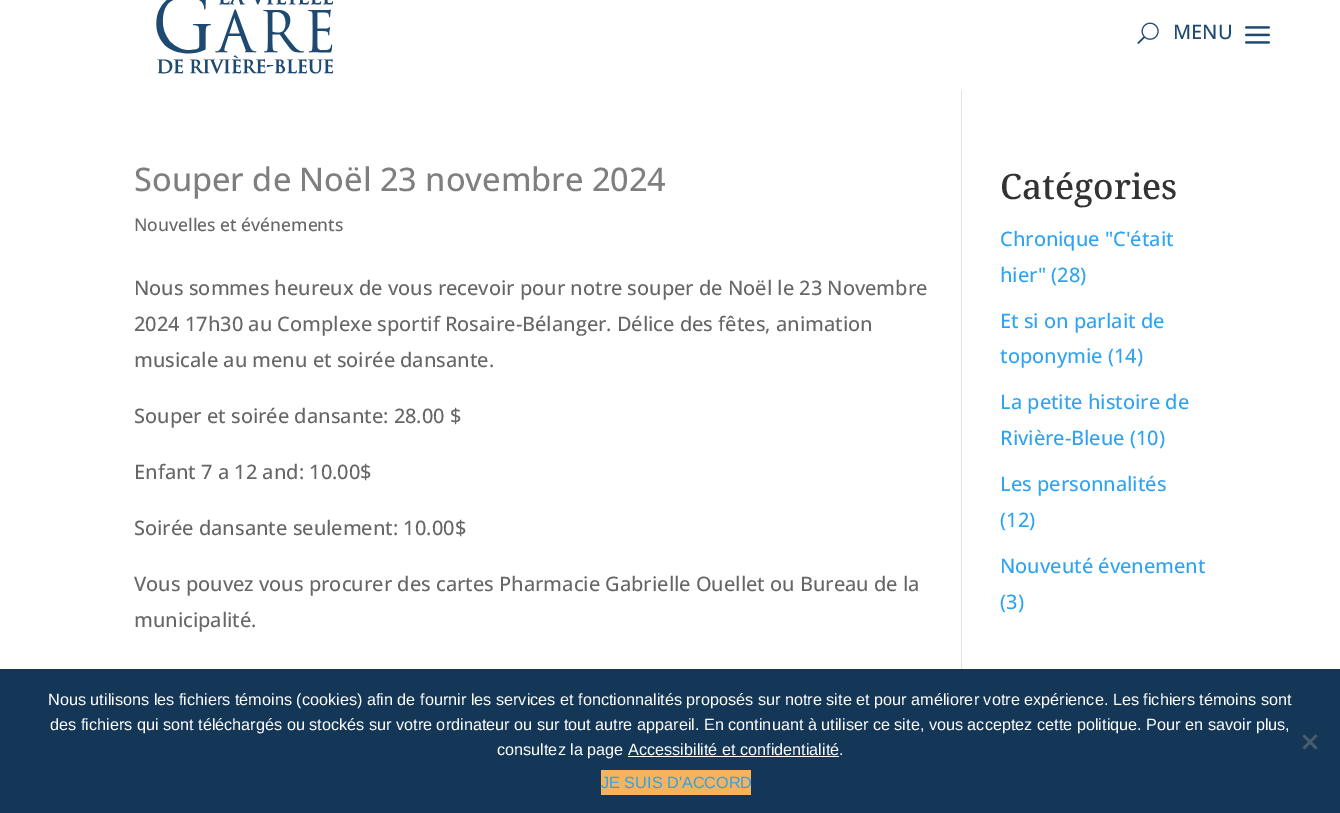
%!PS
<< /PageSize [1340 813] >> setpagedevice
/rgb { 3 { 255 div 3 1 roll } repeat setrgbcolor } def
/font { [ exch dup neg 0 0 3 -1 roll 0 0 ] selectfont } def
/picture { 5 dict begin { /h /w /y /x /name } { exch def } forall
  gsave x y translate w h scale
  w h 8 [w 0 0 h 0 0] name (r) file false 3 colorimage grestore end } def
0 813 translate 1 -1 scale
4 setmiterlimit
255 255 255 rgb
0 0 1340 813 rectfill
(img/1.rgb) 156 0 178 74 picture
(img/2.rgb) 1137 22 22 22 picture
(img/3.rgb) 1245 26 25 18 picture
[
  [961 90 1 579 226 226 226]
  [0 669 1340 144 20 55 88]
  [628 756 211 1 255 255 255]
] { aload pop rgb rectfill } forall
74 92 108 rgb
1315.5 734.5 moveto 1317.5 736 lineto 1304.5 749.5 lineto 1302.5 747.5 lineto closepath fill
1302.5 736 moveto 1304.5 734.5 lineto 1317.5 747.5 lineto 1315.5 749.5 lineto closepath fill
242 180 94 rgb
601 770 150 25 rectfill
/OpenSans-Medium 20 font
30 73 113 rgb
1173 39 moveto (MENU) show
/OpenSans-Medium 32.5 font
127 127 127 rgb
134 191 moveto (Souper de Noël 23 novembre 2024) show
/OpenSans-Medium 17.5 font
102 102 102 rgb
134 231 moveto (Nouvelles et événements) show
/OpenSans-Medium 20 font
[
  [(Nous sommes heureux de vous recevoir pour notre souper de Noël le 23 Novembre) 134 295]
  [(2024 17h30 au Complexe sportif Rosaire-Bélanger. Délice des fêtes, animation) 134 331]
  [(musicale au menu et soirée dansante.) 134 367]
  [(Souper et soirée dansante: 28.00 $) 134 423]
  [(Enfant 7 a 12 and: 10.00$) 134 479]
  [(Soirée dansante seulement: 10.00$) 134 535]
  [(Vous pouvez vous procurer des cartes Pharmacie Gabrielle Ouellet ou Bureau de la) 134 591]
  [(municipalité.) 134 627]
] { aload pop moveto show } forall
/NotoSerif-Medium 35 font
51 51 51 rgb
1000 199 moveto (Catégories) show
/OpenSans-Medium 20 font
46 163 242 rgb
[
  [(Chronique "C'était) 1000 246]
  [(hier" \(28\)) 1000 282]
  [(Et si on parlait de) 1000 328]
  [(toponymie \(14\)) 1000 363]
  [(La petite histoire de) 1000 409]
  [(Rivière-Bleue \(10\)) 1000 445]
  [(Les personnalités) 1000 491]
  [(\(12\)) 1000 527]
  [(Nouveuté évenement) 1000 573]
  [(\(3\)) 1000 609]
] { aload pop moveto show } forall
/LiberationSans-Regular 16.25 font
255 255 255 rgb
[
  [(Nous utilisons les fichiers témoins \(cookies\) afin de fournir les services et fonctionnalités proposés sur notre site et pour améliorer votre expérience. Les fichiers témoins sont) 48 705]
  [(des fichiers qui sont téléchargés ou stockés sur votre ordinateur ou sur tout autre appareil. En continuant à utiliser ce site, vous acceptez cette politique. Pour en savoir plus,) 50 730]
  [(consultez la page Accessibilité et confidentialité.) 497 755]
] { aload pop moveto show } forall
54 159 231 rgb
601 788 moveto (JE SUIS D'ACCORD) show
showpage
